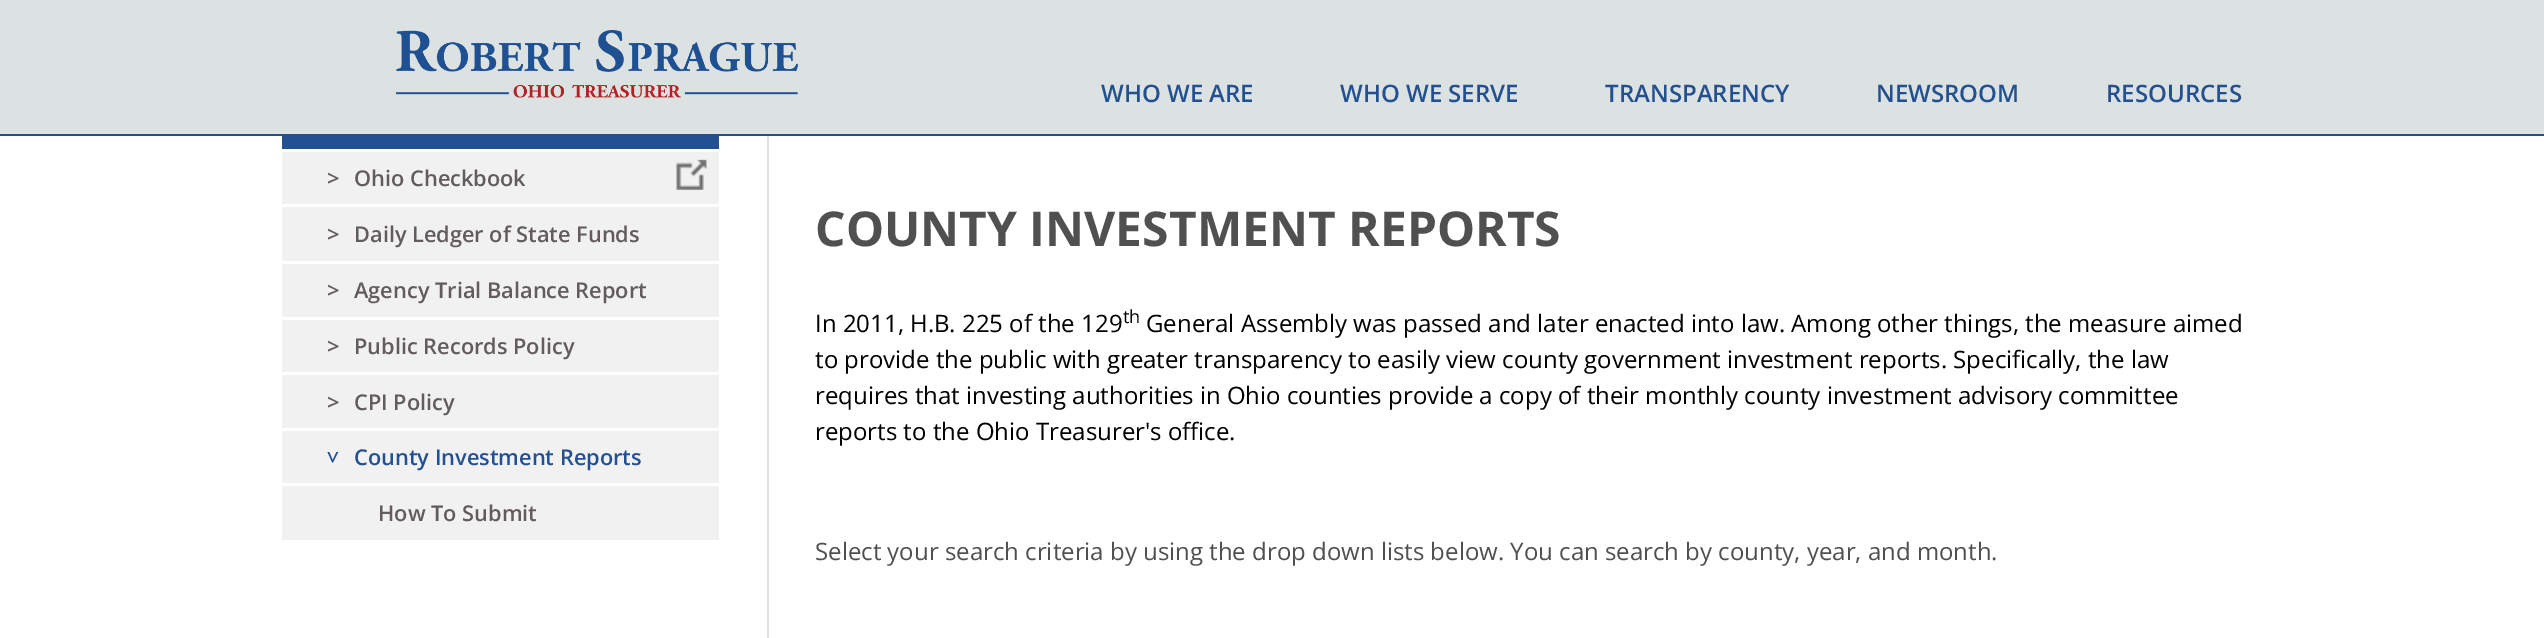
%!PS
<< /PageSize [2544 638] >> setpagedevice
/rgb { 3 { 255 div 3 1 roll } repeat setrgbcolor } def
/font { [ exch dup neg 0 0 3 -1 roll 0 0 ] selectfont } def
/picture { 5 dict begin { /h /w /y /x /name } { exch def } forall
  gsave x y translate w h scale
  w h 8 [w 0 0 h 0 0] name (r) file false 3 colorimage grestore end } def
0 638 translate 1 -1 scale
4 setmiterlimit
255 255 255 rgb
0 0 2544 638 rectfill
220 226 225 rgb
0 0 2544 134 rectfill
34 80 145 rgb
0 134 2544 2 rectfill
(img/1.rgb) 396 30 402 68 picture
282 136 437 13 rectfill
241 241 241 rgb
282 152 437 388 rectfill
(img/2.rgb) 676 159 31 31 picture
[
  [282 204 437 3 255 255 255]
  [282 261 437 3 255 255 255]
  [282 317 437 3 255 255 255]
  [282 372 437 3 255 255 255]
  [282 428 437 3 255 255 255]
  [282 483 437 3 255 255 255]
  [767 136 2 502 220 226 225]
] { aload pop rgb rectfill } forall
/OpenSans-SemiBold 24 font
34 80 145 rgb
[
  [(WHO WE ARE) 1101 102]
  [(WHO WE SERVE) 1340 102]
  [(TRANSPARENCY) 1605 102]
  [(NEWSROOM) 1876 102]
  [(RESOURCES) 2106 102]
] { aload pop moveto show } forall
/OpenSans-SemiBold 21.75 font
98 92 92 rgb
[
  [(>) 327 186]
  [(Ohio Checkbook) 354 186]
  [(>) 327 242]
  [(Daily Ledger of State Funds) 354 242]
  [(>) 327 298]
  [(Agency Trial Balance Report) 354 298]
  [(>) 327 354]
  [(Public Records Policy) 354 354]
  [(>) 327 410]
  [(CPI Policy) 354 410]
] { aload pop moveto show } forall
34 80 145 rgb
gsave 325 451 translate 90 rotate 0 0 moveto (>) show grestore
354 465 moveto (County Investment Reports) show
98 92 92 rgb
378 521 moveto (How To Submit) show
/OpenSans-Bold 48 font
81 80 80 rgb
815 246 moveto (COUNTY INVESTMENT REPORTS) show
/OpenSans-Regular 24 font
0 0 0 rgb
815 332 moveto (In 2011, H.B. 225 of the 129) show
/OpenSans-Regular 18 font
1123 323 moveto (th) show
/OpenSans-Regular 24 font
[
  [(General Assembly was passed and later enacted into law. Among other things, the measure aimed) 1146 332]
  [(to provide the public with greater transparency to easily view county government investment reports. Specifically, the law) 815 368]
  [(requires that investing authorities in Ohio counties provide a copy of their monthly county investment advisory committee) 815 404]
  [(reports to the Ohio Treasurer's office.) 815 440]
] { aload pop moveto show } forall
81 80 80 rgb
815 560 moveto (Select your search criteria by using the drop down lists below. You can search by county, year, and month.) show
showpage
